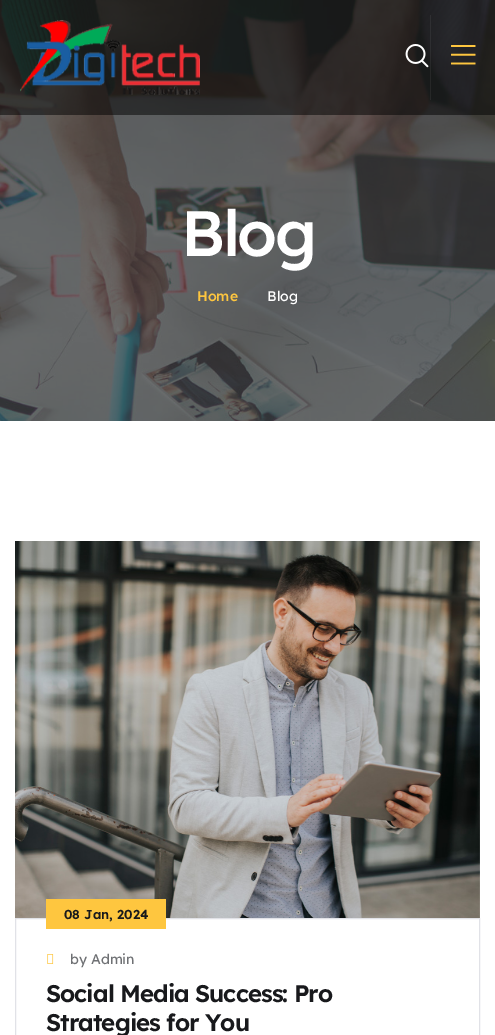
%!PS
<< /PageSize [495 1035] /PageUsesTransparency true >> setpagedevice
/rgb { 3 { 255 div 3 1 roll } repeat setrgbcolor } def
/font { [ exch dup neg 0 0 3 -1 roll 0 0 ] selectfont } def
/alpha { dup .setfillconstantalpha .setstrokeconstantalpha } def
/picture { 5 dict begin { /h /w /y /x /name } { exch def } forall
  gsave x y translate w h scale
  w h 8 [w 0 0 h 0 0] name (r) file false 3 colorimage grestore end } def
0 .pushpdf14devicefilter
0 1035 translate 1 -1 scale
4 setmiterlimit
255 255 255 rgb
0 0 495 1035 rectfill
(img/4.rgb) 0 0 495 421 picture
0.5 alpha
0 0 0 rgb
0 0 495 115 rectfill
1 alpha
(img/1.rgb) 20 20 180 75 picture
0.06 alpha
255 255 255 rgb
430 15 1 85 rectfill
1 alpha
(img/2.rgb) 405 44 24 24 picture
(img/3.rgb) 451 45 25 20 picture
(img/5.rgb) 15 541 465 377 picture
225 226 231 rgb
15.5 918.5 464 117 rectstroke
254 198 63 rgb
46 899 120 30 rectfill
(img/6.rgb) 47 954 7 10 picture
/Lexend-Medium 64 font
255 255 255 rgb
181 256 moveto -2.5 0 (Blog) ashow
/Lexend-Medium 14 font
254 198 63 rgb
197 301 moveto (Home) show
/Lexend-Regular 14 font
255 255 255 rgb
267 301 moveto (Blog) show
/Lexend-SemiBold 13 font
24 25 28 rgb
64 919 moveto (08 Jan, 2024) show
/Lexend-Regular 14 font
111 113 116 rgb
70 964 moveto (by Admin) show
/Lexend-SemiBold 24 font
24 25 28 rgb
46 1002 moveto -0.95 0 (Social Media Success: Pro) ashow
46 1031 moveto -0.95 0 (Strategies for You) ashow
.poppdf14devicefilter showpage
